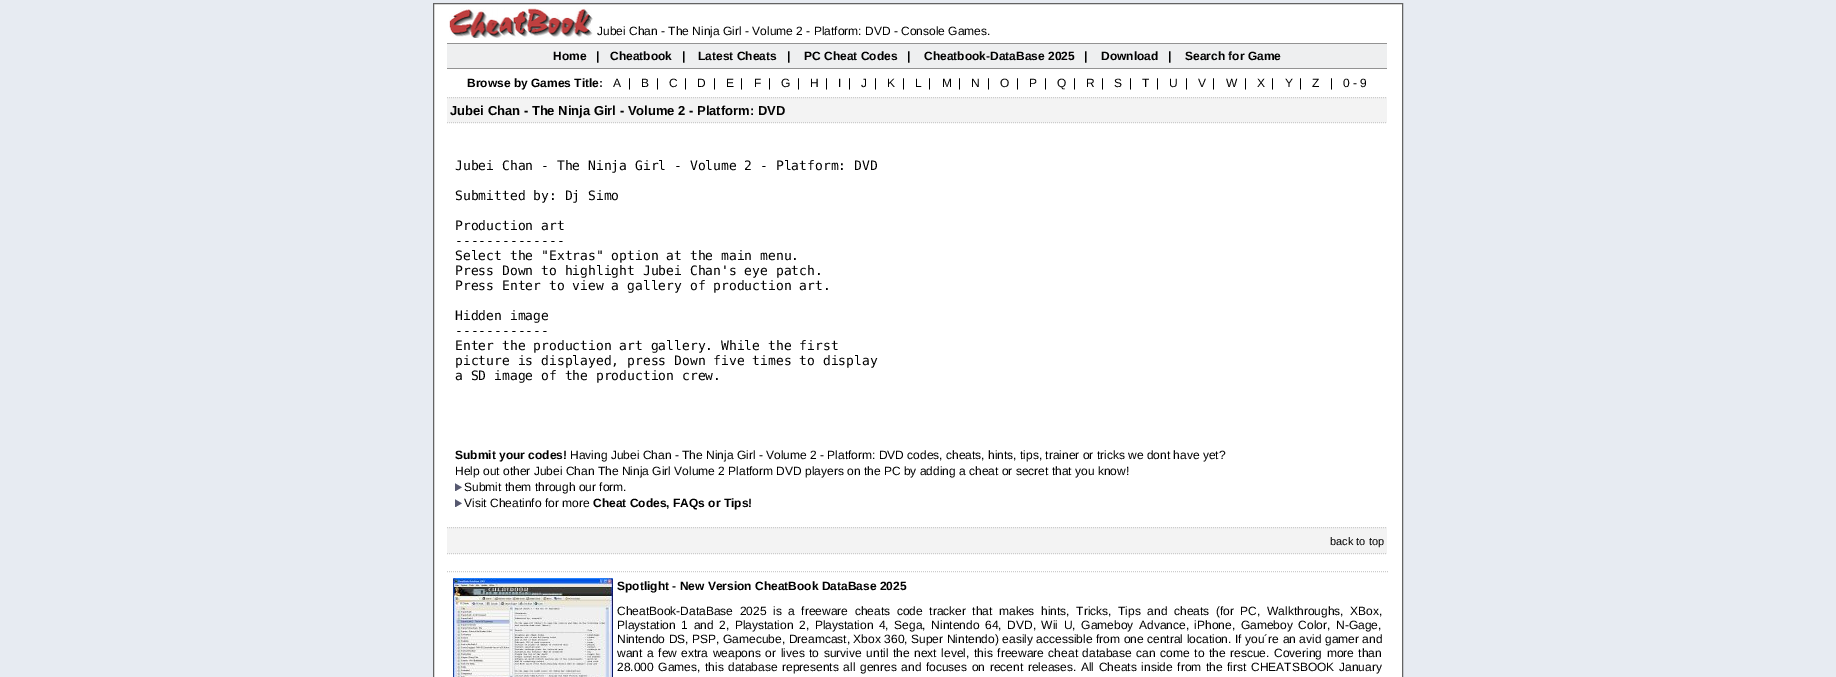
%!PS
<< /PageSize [1836 677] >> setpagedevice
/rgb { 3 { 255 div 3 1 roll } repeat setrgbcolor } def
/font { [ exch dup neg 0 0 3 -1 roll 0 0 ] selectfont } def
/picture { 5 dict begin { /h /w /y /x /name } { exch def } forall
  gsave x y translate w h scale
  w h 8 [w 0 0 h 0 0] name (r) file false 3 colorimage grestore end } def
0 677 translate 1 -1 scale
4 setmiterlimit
231 235 242 rgb
0 0 1836 677 rectfill
255 255 255 rgb
433.5 3.5 moveto 1402.5 3.5 lineto 1402.5 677.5 lineto 433.5 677.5 lineto closepath gsave fill grestore
99 99 99 rgb
stroke
(img/1.rgb) 449 8 144 30 picture
[
  [447 44 940 24 238 239 240]
  [447 43 940 1 147 147 147]
  [447 68 940 1 147 147 147]
  [447 97 940 26 243 243 243]
] { aload pop rgb rectfill } forall
204 204 204 rgb
[1 1] 0 setdash
447 97.5 moveto 1387 97.5 lineto stroke
447 122.5 moveto 1387 122.5 lineto stroke
(img/2.rgb) 455 483 7 8 picture
(img/2.rgb) 455 499 7 8 picture
243 243 243 rgb
447 527 940 27 rectfill
204 204 204 rgb
447 527.5 moveto 1387 527.5 lineto stroke
447 553.5 moveto 1387 553.5 lineto stroke
447 571.5 moveto 1389 571.5 lineto stroke
(img/3.rgb) 453 578 160 99 picture
/LiberationSans-Regular 12 font
0 0 0 rgb
597 35 moveto (Jubei Chan - The Ninja Girl - Volume 2 - Platform: DVD - Console Games.) show
/LiberationSans-Bold 12 font
[
  [(Home) 553 60]
  [(|) 596 60]
  [(Cheatbook) 610 60]
  [(|) 682 60]
  [(Latest Cheats) 698 60]
  [(|) 787 60]
  [(PC Cheat Codes) 804 60]
  [(|) 907 60]
  [(Cheatbook-DataBase 2025) 924 60]
  [(|) 1084 60]
  [(Download) 1101 60]
  [(|) 1168 60]
  [(Search for Game) 1185 60]
  [(Browse by Games Title:) 467 87]
] { aload pop moveto show } forall
/LiberationSans-Regular 12 font
[
  [(A) 613 87]
  [(|) 628 87]
  [(B) 641 87]
  [(|) 656 87]
  [(C) 669 87]
  [(|) 684 87]
  [(D) 697 87]
  [(|) 713 87]
  [(E) 726 87]
  [(|) 740 87]
  [(F) 754 87]
  [(|) 768 87]
  [(G) 781 87]
  [(|) 797 87]
  [(H) 810 87]
  [(|) 825 87]
  [(I) 838 87]
  [(|) 848 87]
  [(J) 861 87]
  [(|) 874 87]
  [(K) 887 87]
  [(|) 902 87]
  [(L) 915 87]
  [(|) 928 87]
  [(M) 942 87]
  [(|) 958 87]
  [(N) 971 87]
  [(|) 987 87]
  [(O) 1000 87]
  [(|) 1016 87]
  [(P) 1029 87]
  [(|) 1044 87]
  [(Q) 1057 87]
  [(|) 1073 87]
  [(R) 1086 87]
  [(|) 1101 87]
  [(S) 1114 87]
  [(|) 1129 87]
  [(T) 1142 87]
  [(|) 1156 87]
  [(U) 1169 87]
  [(|) 1185 87]
  [(V) 1198 87]
  [(|) 1212 87]
  [(W) 1226 87]
  [(|) 1244 87]
  [(X) 1257 87]
  [(|) 1271 87]
  [(Y) 1285 87]
  [(|) 1299 87]
  [(Z) 1312 87]
  [(|) 1330 87]
  [(0 - 9) 1343 87]
] { aload pop moveto show } forall
/LiberationSans-Bold 13 font
450 115 moveto (Jubei Chan - The Ninja Girl - Volume 2 - Platform: DVD) show
/DejaVuSansMono-Regular 13 font
[
  [(Jubei Chan - The Ninja Girl - Volume 2 - Platform: DVD) 455 170]
  [(Submitted by: Dj Simo) 455 200]
  [(Production art) 455 230]
  [(--------------) 455 245]
  [(Select the "Extras" option at the main menu.) 455 260]
  [(Press Down to highlight Jubei Chan's eye patch.) 455 275]
  [(Press Enter to view a gallery of production art.) 455 290]
  [(Hidden image) 455 320]
  [(------------) 455 335]
  [(Enter the production art gallery. While the first) 455 350]
  [(picture is displayed, press Down five times to display) 455 365]
  [(a SD image of the production crew.) 455 380]
] { aload pop moveto show } forall
/LiberationSans-Bold 12 font
455 459 moveto (Submit your codes!) show
/LiberationSans-Regular 12 font
[
  [(Having Jubei Chan - The Ninja Girl - Volume 2 - Platform: DVD codes, cheats, hints, tips, trainer or tricks we dont have yet?) 570 459]
  [(Help out other Jubei Chan The Ninja Girl Volume 2 Platform DVD players on the PC by adding a cheat or secret that you know!) 455 475]
  [(Submit them through our form.) 464 491]
  [(Visit Cheatinfo for more) 464 507]
] { aload pop moveto show } forall
/LiberationSans-Bold 12 font
593 507 moveto (Cheat Codes, FAQs or Tips!) show
/LiberationSans-Regular 11 font
1330 545 moveto (back to top) show
/LiberationSans-Bold 12 font
617 590 moveto (Spotlight - New Version CheatBook DataBase 2025) show
/LiberationSans-Regular 12 font
617 615 moveto 3.25 0 32 (CheatBook-DataBase 2025 is a freeware cheats code tracker that makes hints, Tricks, Tips and cheats \(for PC, Walkthroughs, XBox,) widthshow
617 629 moveto 2.25 0 32 (Playstation 1 and 2, Playstation 2, Playstation 4, Sega, Nintendo 64, DVD, Wii U, Gameboy Advance, iPhone, Gameboy Color, N-Gage,) widthshow
617 643 moveto 0.2 0 32 (Nintendo DS, PSP, Gamecube, Dreamcast, Xbox 360, Super Nintendo\) easily accessible from one central location. If you´re an avid gamer and) widthshow
617 657 moveto 1.25 0 32 (want a few extra weapons or lives to survive until the next level, this freeware cheat database can come to the rescue. Covering more than) widthshow
617 671 moveto 1.25 0 32 (28.000 Games, this database represents all genres and focuses on recent releases. All Cheats inside from the first CHEATSBOOK January) widthshow
showpage
